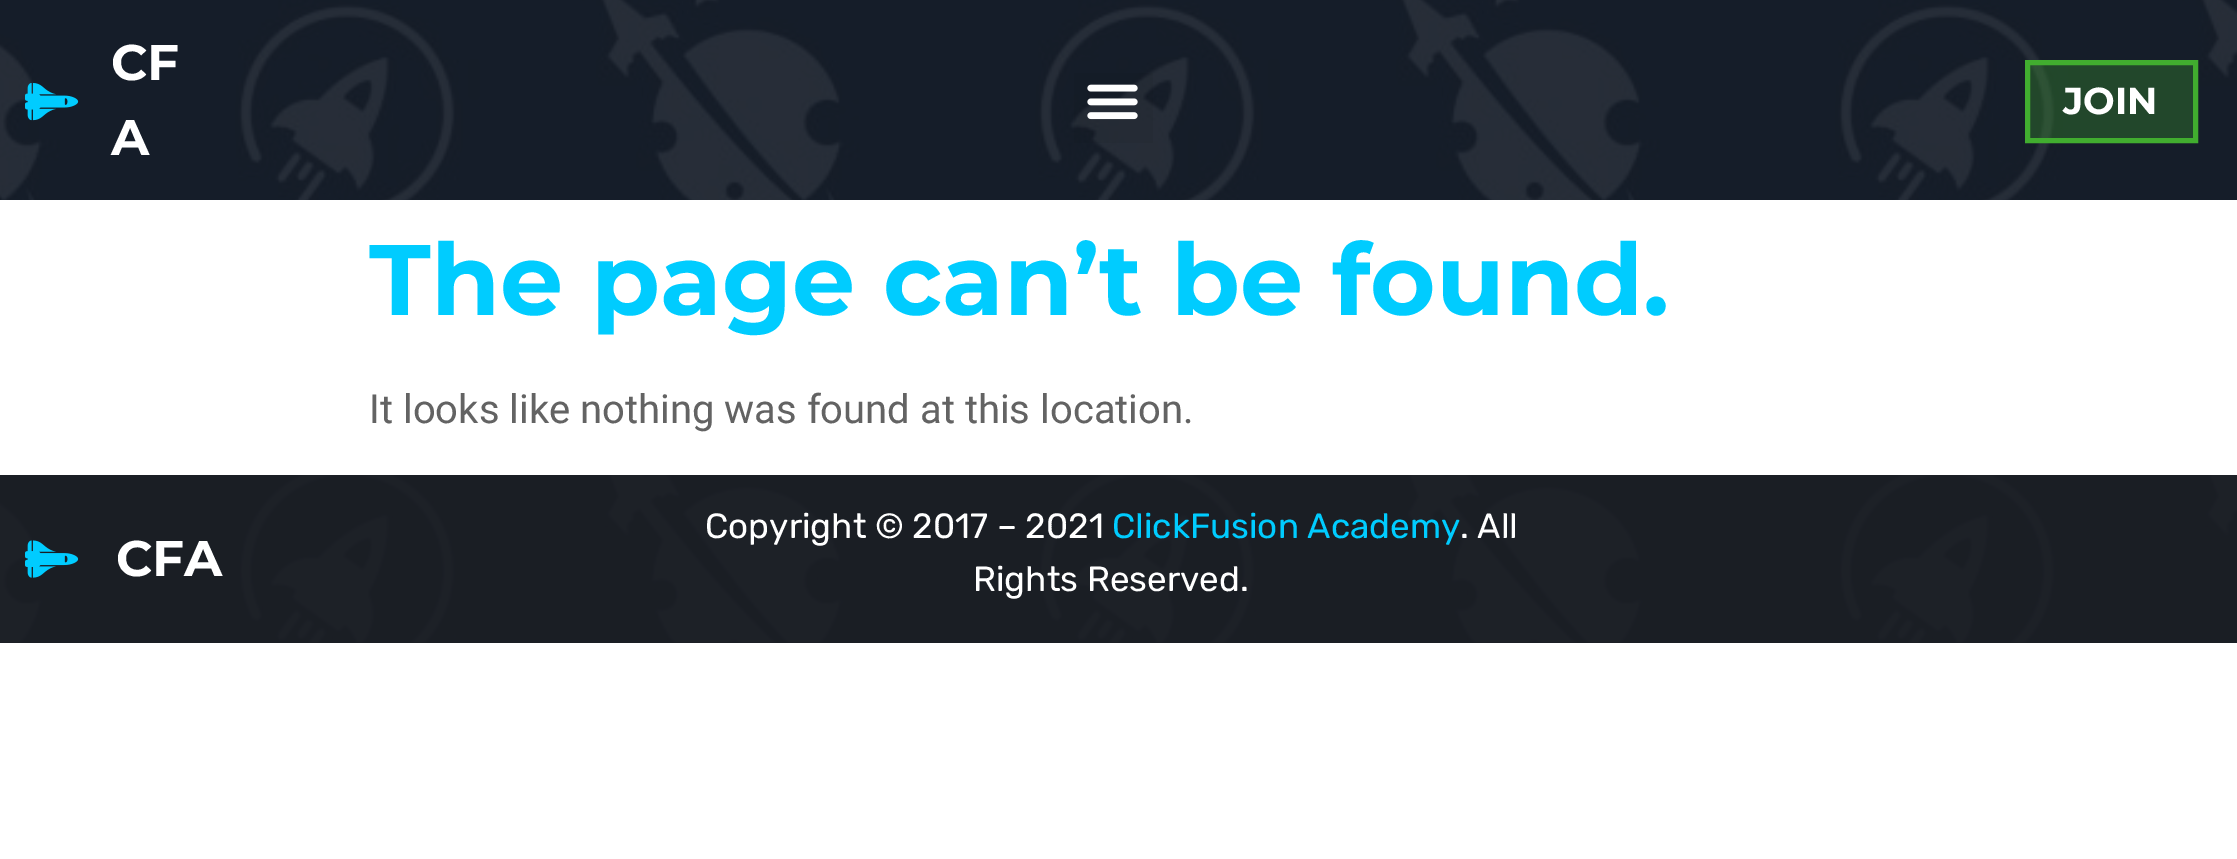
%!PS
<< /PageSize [2237 859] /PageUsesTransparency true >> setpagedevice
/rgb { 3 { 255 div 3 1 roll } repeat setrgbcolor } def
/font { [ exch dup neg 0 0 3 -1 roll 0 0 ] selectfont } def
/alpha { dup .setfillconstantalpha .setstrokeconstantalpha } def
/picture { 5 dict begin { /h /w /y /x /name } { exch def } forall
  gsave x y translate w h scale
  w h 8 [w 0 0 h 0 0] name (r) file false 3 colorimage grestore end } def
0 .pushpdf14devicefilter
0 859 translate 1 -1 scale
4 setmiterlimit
255 255 255 rgb
0 0 2237 859 rectfill
(img/1.rgb) 0 0 2237 200 picture
(img/2.rgb) 25 83 54 38 picture
0.05 alpha
0 0 0 rgb
1074 73 79 70 rectfill
1 alpha
(img/3.rgb) 1087 84 51 36 picture
0.29 alpha
65 173 47 rgb
2027.5 62.5 moveto 2195.5 62.5 lineto 2195.5 140.5 lineto 2027.5 140.5 lineto closepath fill
1 alpha
5 setlinewidth
2027.5 62.5 moveto 2195.5 62.5 lineto 2195.5 140.5 lineto 2027.5 140.5 lineto closepath stroke
26 30 35 rgb
0 642 2237 1 rectfill
(img/4.rgb) 0 475 2237 168 picture
(img/5.rgb) 25 540 54 38 picture
/Montserrat-Bold 50 font
255 255 255 rgb
111 80 moveto (CF) show
111 155 moveto (A) show
/Montserrat-Bold 37.5 font
2063 114 moveto (JOIN) show
/Montserrat-Bold 100 font
0 204 255 rgb
369 315 moveto (The page can’t be found.) show
/Roboto-Regular 40 font
99 99 99 rgb
369 423 moveto (It looks like nothing was found at this location.) show
/Montserrat-Bold 50 font
255 255 255 rgb
116 576 moveto (CFA) show
/Rubik-Regular 35 font
705 538 moveto (Copyright © 2017 – 2021) show
0 204 255 rgb
1112 538 moveto (ClickFusion Academy) show
255 255 255 rgb
1460 538 moveto (. All) show
973 591 moveto (Rights Reserved.) show
.poppdf14devicefilter showpage
